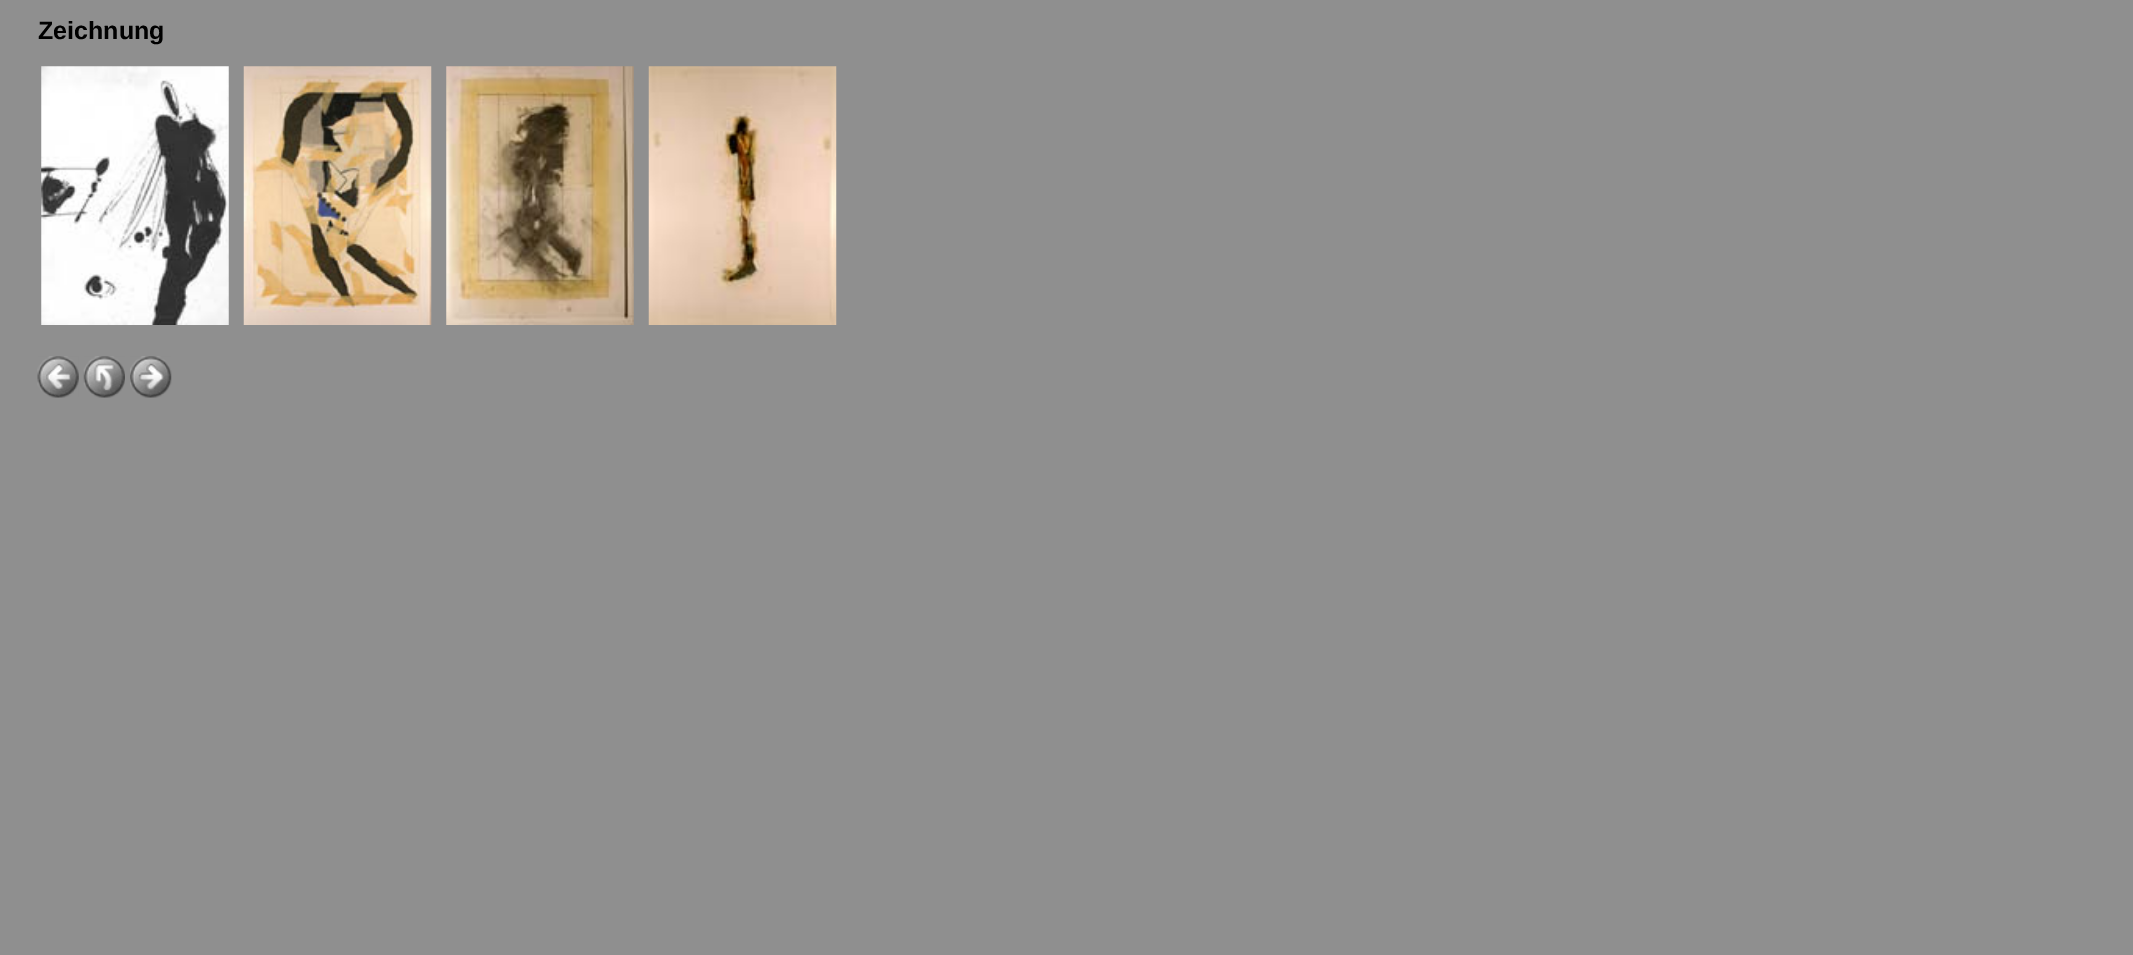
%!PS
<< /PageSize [2133 955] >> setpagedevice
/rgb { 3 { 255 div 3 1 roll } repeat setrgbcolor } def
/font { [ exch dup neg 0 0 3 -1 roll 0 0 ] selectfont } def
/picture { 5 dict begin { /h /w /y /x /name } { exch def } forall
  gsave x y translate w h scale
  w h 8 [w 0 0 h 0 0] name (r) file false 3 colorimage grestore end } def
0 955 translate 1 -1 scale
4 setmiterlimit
143 143 143 rgb
0 0 2133 955 rectfill
(img/1.rgb) 41 66 188 259 picture
(img/2.rgb) 243 66 189 259 picture
(img/3.rgb) 446 66 188 259 picture
(img/4.rgb) 648 66 189 259 picture
(img/5.rgb) 37 356 42 42 picture
(img/6.rgb) 83 356 42 42 picture
(img/7.rgb) 130 356 42 42 picture
/LiberationSans-Bold 25 font
0 0 0 rgb
38 39 moveto (Zeichnung) show
showpage
